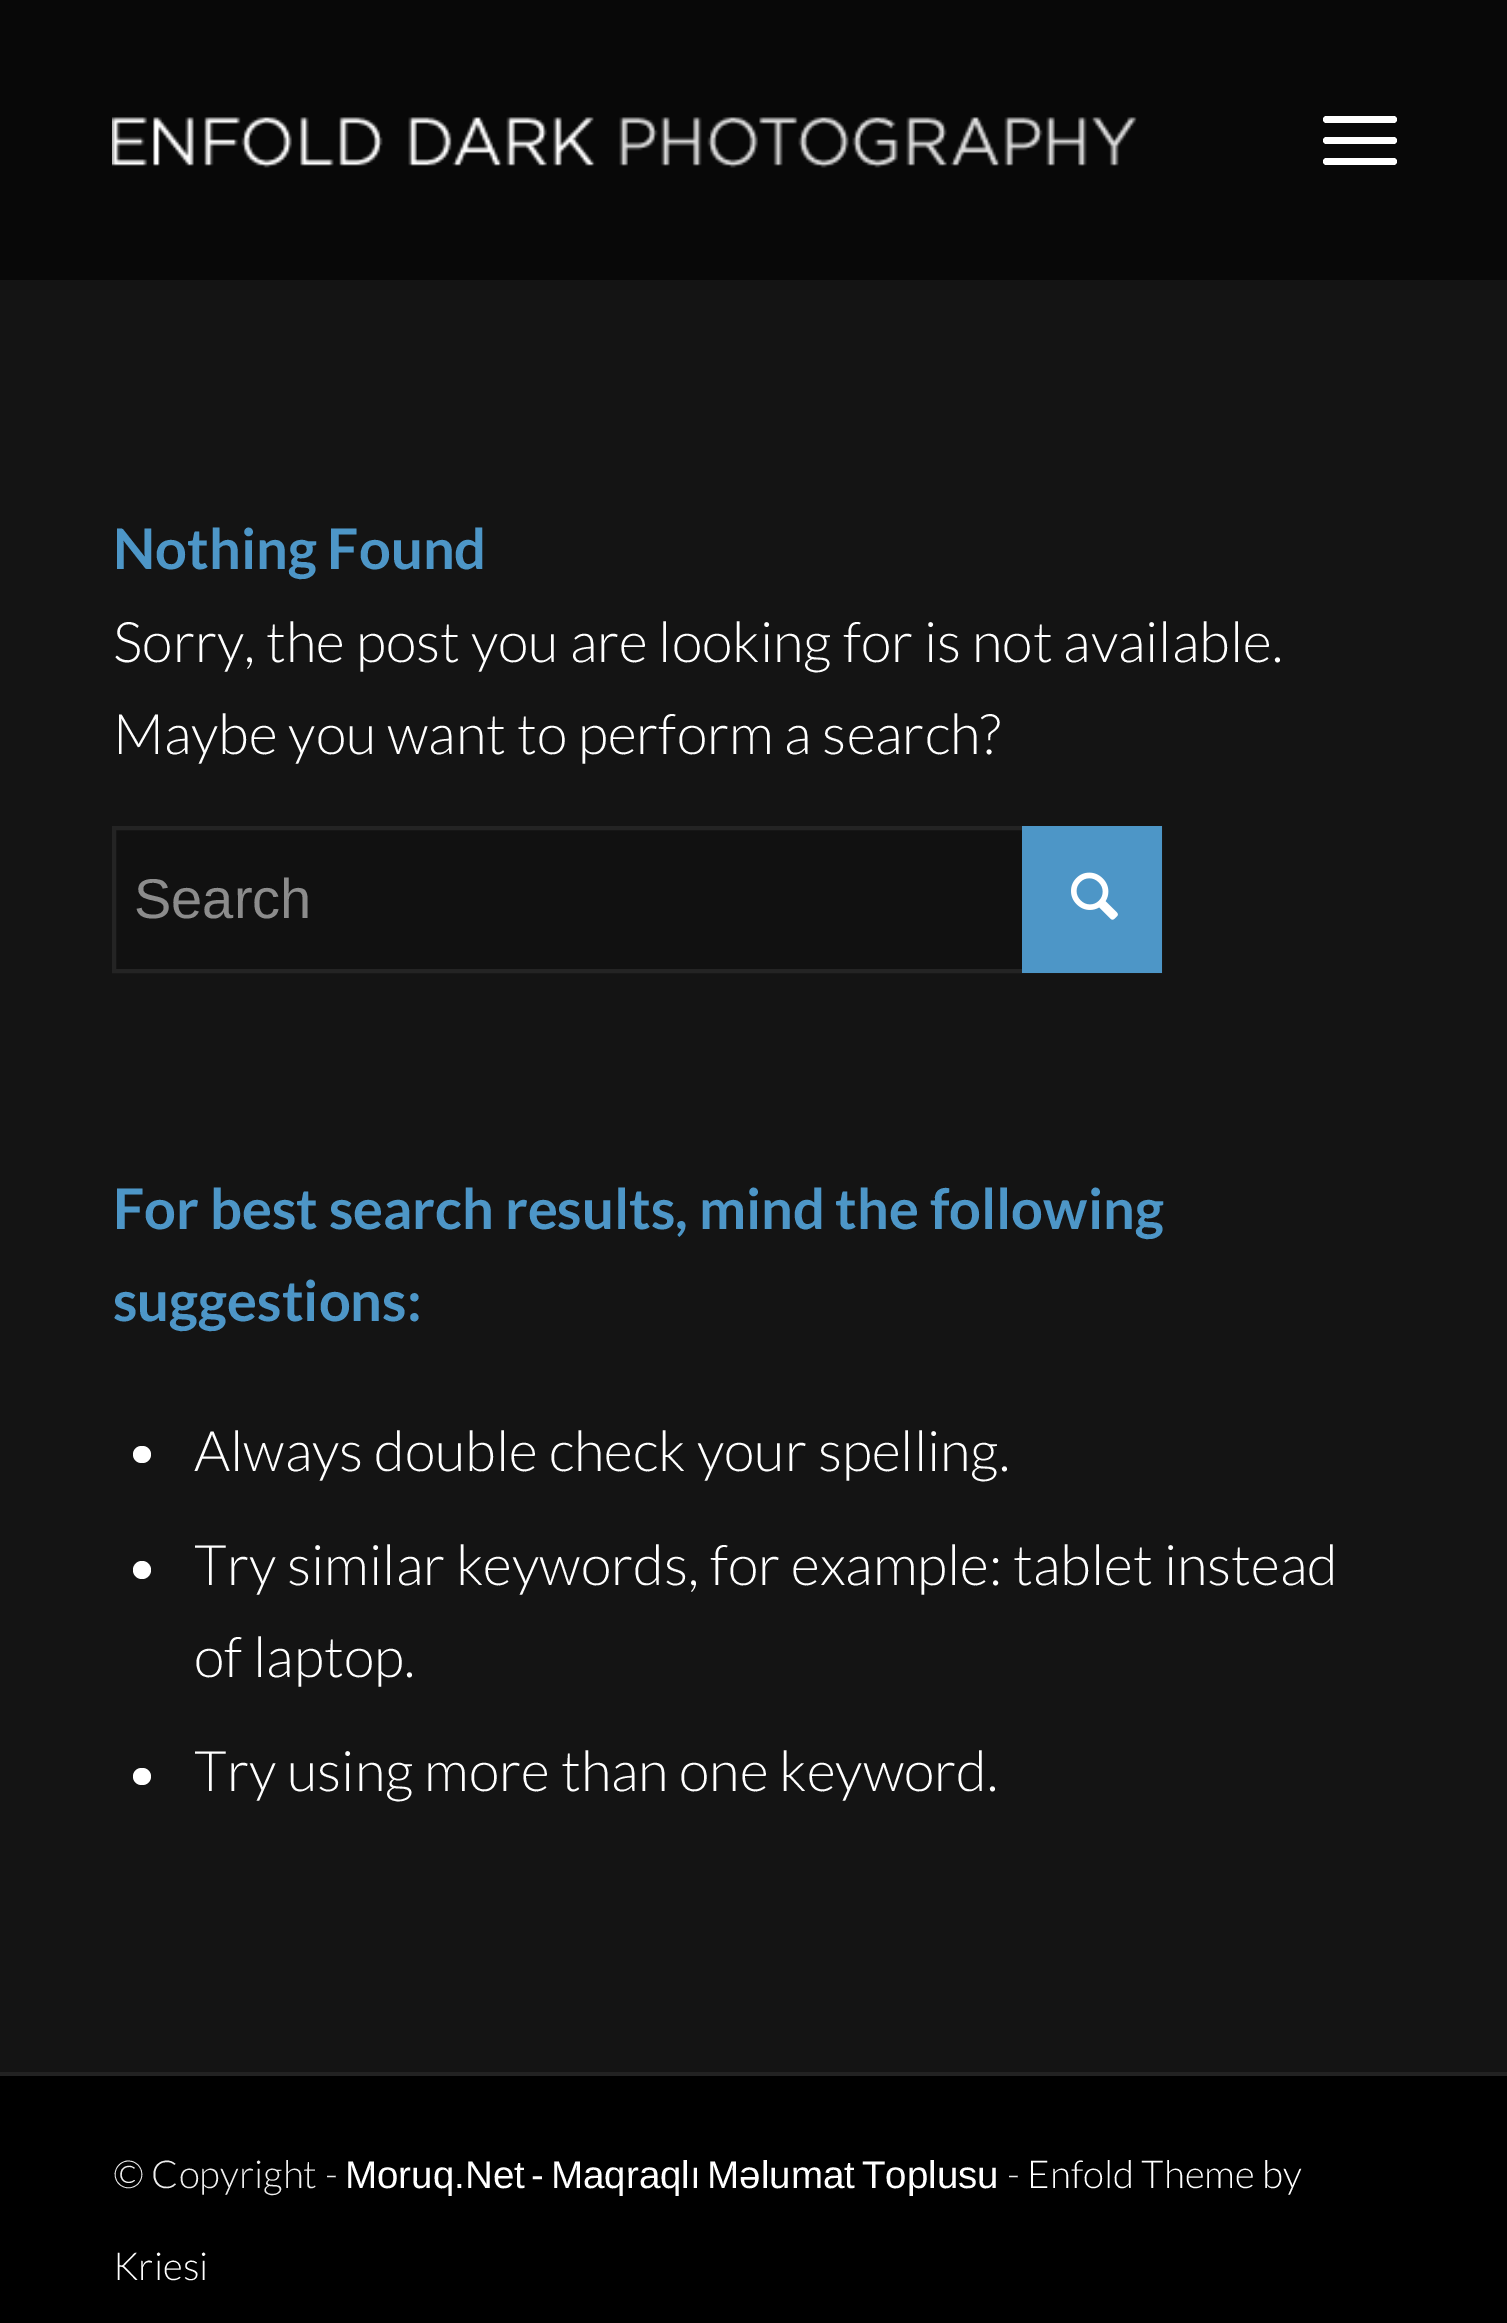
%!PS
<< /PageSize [1507 2323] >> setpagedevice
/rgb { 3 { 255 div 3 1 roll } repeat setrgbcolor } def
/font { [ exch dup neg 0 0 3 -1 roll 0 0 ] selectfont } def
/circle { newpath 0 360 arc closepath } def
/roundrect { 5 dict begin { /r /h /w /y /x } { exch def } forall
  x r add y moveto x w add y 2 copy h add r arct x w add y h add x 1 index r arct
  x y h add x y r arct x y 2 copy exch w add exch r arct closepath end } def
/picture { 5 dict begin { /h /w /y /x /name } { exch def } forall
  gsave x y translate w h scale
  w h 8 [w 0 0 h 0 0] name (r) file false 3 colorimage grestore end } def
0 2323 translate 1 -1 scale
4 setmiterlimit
20 20 20 rgb
0 0 1507 2323 rectfill
8 8 8 rgb
0 0 1507 280 rectfill
(img/1.rgb) 112 117 1025 51 picture
255 255 255 rgb
1323 137 74 7 3.5 roundrect fill
1323 116 74 7 3.5 roundrect fill
1323 158 74 7 3.5 roundrect fill
17 17 17 rgb
116 830 906 139 rectfill
36 36 36 rgb
4 setlinewidth
114 828 1046 143 rectstroke
77 150 199 rgb
1022 826 140 147 rectfill
(img/2.rgb) 1071 872 47 48 picture
255 255 255 rgb
133 1446 18 17 8.5 roundrect fill
142 1570 9 circle fill
133 1768 18 17 8.5 roundrect fill
0 0 0 rgb
0 2076 1507 247 rectfill
34 34 34 rgb
0 2072 1507 4 rectfill
/Lato-Bold 56 font
77 150 199 rgb
113 569 moveto (Nothing Found) show
/Lato-Light 56 font
255 255 255 rgb
113 662 moveto (Sorry, the post you are looking for is not available.) show
113 754 moveto (Maybe you want to perform a search?) show
/LiberationSans-Regular 56 font
140 140 140 rgb
134 918 moveto (Search) show
/Lato-Bold 56 font
77 150 199 rgb
113 1229 moveto (For best search results, mind the following) show
113 1321 moveto (suggestions:) show
/Lato-Light 56 font
255 255 255 rgb
[
  [(Always double check your spelling.) 194 1471]
  [(Try similar keywords, for example: tablet instead) 194 1585]
  [(of laptop.) 194 1677]
  [(Try using more than one keyword.) 194 1791]
] { aload pop moveto show } forall
/Lato-Light 38.5 font
238 238 238 rgb
113 2188 moveto (© Copyright -) show
/LiberationSans-Regular 38.5 font
255 255 255 rgb
345 2188 moveto -4 0 32 (Moruq.Net - Maqraqlı Məlumat Toplusu) widthshow
/Lato-Light 38.5 font
238 238 238 rgb
1007 2188 moveto (-) show
255 255 255 rgb
1027 2188 moveto (Enfold Theme by) show
113 2280 moveto (Kriesi) show
showpage
